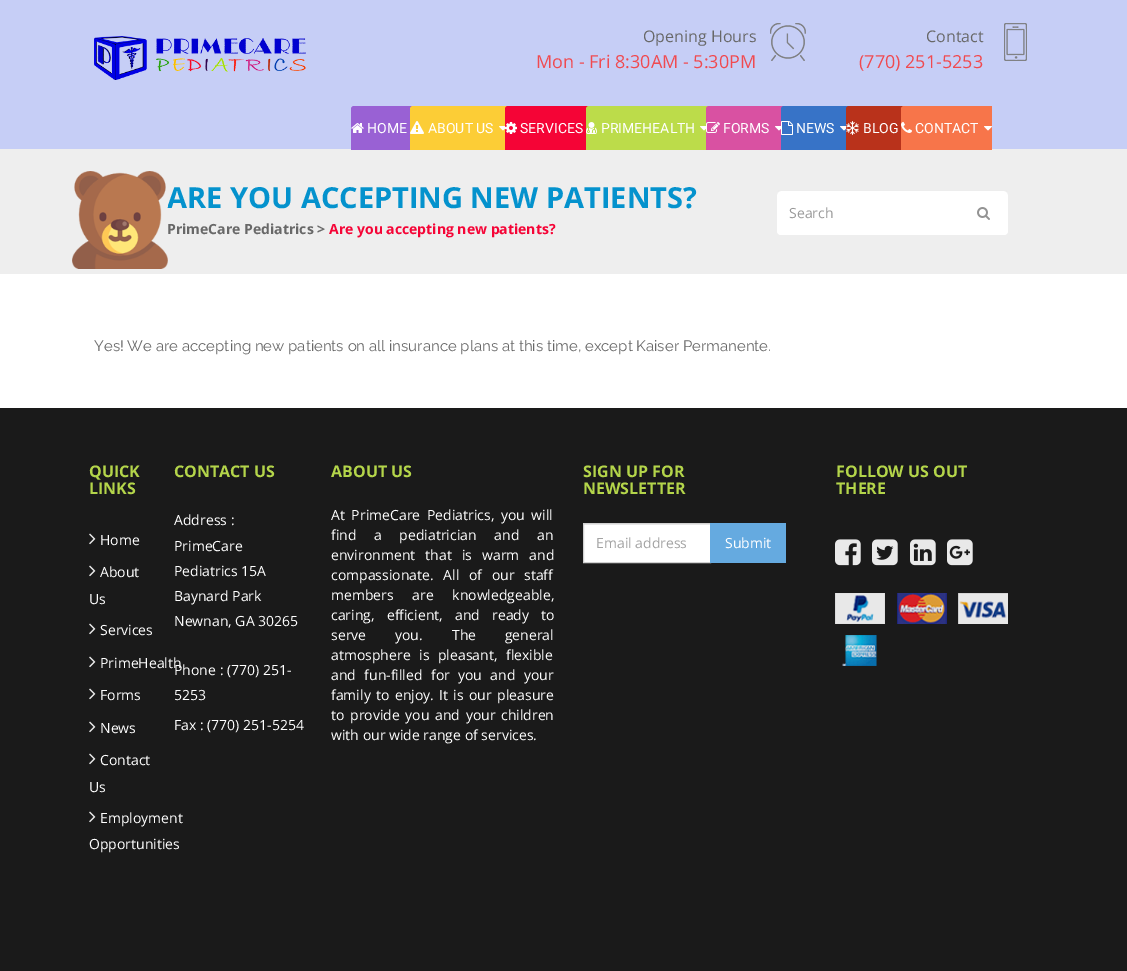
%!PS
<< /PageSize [1127 971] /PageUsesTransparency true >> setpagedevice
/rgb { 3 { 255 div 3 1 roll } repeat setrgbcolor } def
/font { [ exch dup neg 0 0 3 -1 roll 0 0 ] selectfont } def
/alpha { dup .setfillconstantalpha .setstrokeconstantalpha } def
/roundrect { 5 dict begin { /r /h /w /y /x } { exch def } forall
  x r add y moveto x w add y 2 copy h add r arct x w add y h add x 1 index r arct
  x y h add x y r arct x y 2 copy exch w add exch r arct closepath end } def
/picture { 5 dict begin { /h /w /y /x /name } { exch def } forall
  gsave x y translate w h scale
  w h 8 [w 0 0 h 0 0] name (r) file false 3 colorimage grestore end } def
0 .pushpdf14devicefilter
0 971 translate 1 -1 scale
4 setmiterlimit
255 255 255 rgb
0 0 1127 971 rectfill
198 206 246 rgb
0 0 1127 149 rectfill
238 238 238 rgb
0 149 1127 125 rectfill
(img/1.rgb) 94 36 212 44 picture
(img/2.rgb) 770 23 36 38 picture
(img/3.rgb) 1004 23 23 38 picture
153 97 212 rgb
354 106 moveto 412 106 lineto 412 150 lineto 351 150 lineto 351 109 lineto 351 107.5 352.5 106 354 106 curveto closepath fill
(img/4.rgb) 351 123 13 10 picture
252 205 54 rgb
413 106 moveto 507 106 lineto 507 150 lineto 410 150 lineto 410 109 lineto 410 107.5 411.5 106 413 106 curveto closepath fill
(img/5.rgb) 410 121 14 13 picture
(img/6.rgb) 499 126 6 5 picture
245 4 54 rgb
508 106 moveto 588 106 lineto 588 150 lineto 505 150 lineto 505 109 lineto 505 107.5 506.5 106 508 106 curveto closepath fill
(img/7.rgb) 505 122 12 12 picture
188 220 74 rgb
589 106 moveto 708 106 lineto 708 150 lineto 586 150 lineto 586 109 lineto 586 107.5 587.5 106 589 106 curveto closepath fill
(img/8.rgb) 586 122 11 12 picture
(img/9.rgb) 700 126 6 5 picture
217 81 162 rgb
709 106 moveto 783 106 lineto 783 150 lineto 706 150 lineto 706 109 lineto 706 107.5 707.5 106 709 106 curveto closepath fill
(img/10.rgb) 706 122 14 11 picture
(img/11.rgb) 775 126 6 5 picture
55 115 199 rgb
784 106 moveto 848 106 lineto 848 150 lineto 781 150 lineto 781 109 lineto 781 107.5 782.5 106 784 106 curveto closepath fill
(img/12.rgb) 781 121 12 14 picture
(img/13.rgb) 840 126 6 5 picture
185 50 27 rgb
849 106 moveto 903 106 lineto 903 150 lineto 846 150 lineto 846 109 lineto 846 107.5 847.5 106 849 106 curveto closepath fill
(img/14.rgb) 846 121 13 14 picture
247 117 74 rgb
904 106 moveto 992 106 lineto 992 150 lineto 901 150 lineto 901 109 lineto 901 107.5 902.5 106 904 106 curveto closepath fill
(img/15.rgb) 901 122 11 11 picture
(img/16.rgb) 984 126 8 5 picture
255 255 255 rgb
777 190 231 45 4 roundrect fill
0.07 alpha
0 0 0 rgb
781 191 moveto 1004 191 lineto 1006 191 1008 193 1008 195 curveto 1008 192 1007 190 1004 190 curveto 781 190 lineto 778 190 777 192 777 195 curveto 777 193 779 191 781 191 curveto closepath fill
1 alpha
(img/18.rgb) 977 207 13 13 picture
26 26 26 rgb
0 408 1127 563 rectfill
(img/19.rgb) 89 533 7 12 picture
(img/19.rgb) 89 565 7 12 picture
(img/19.rgb) 89 623 7 12 picture
(img/19.rgb) 89 656 7 12 picture
(img/19.rgb) 89 688 7 12 picture
(img/19.rgb) 89 721 7 12 picture
(img/19.rgb) 89 753 7 12 picture
(img/19.rgb) 89 811 7 12 picture
255 255 255 rgb
584 525 126 37 rectfill
238 238 238 rgb
584 524 126 1 rectfill
209 209 209 rgb
583.5 523.5 127 39 rectstroke
101 170 224 rgb
710 523 76 40 rectfill
(img/20.rgb) 835 539 26 27 picture
(img/21.rgb) 872 539 26 27 picture
(img/22.rgb) 910 539 26 27 picture
(img/23.rgb) 947 539 26 27 picture
(img/24.rgb) 835 593 50 31 picture
(img/25.rgb) 897 593 50 31 picture
(img/26.rgb) 958 593 50 31 picture
(img/27.rgb) 842 635 35 31 picture
/OpenSans-Regular 16 font
104 104 104 rgb
643 42 moveto (Opening Hours) show
/OpenSans-Regular 18 font
240 74 80 rgb
536 68 moveto (Mon - Fri 8:30AM - 5:30PM) show
/OpenSans-Regular 16 font
104 104 104 rgb
926 42 moveto (Contact) show
/OpenSans-Regular 18 font
240 74 80 rgb
859 68 moveto (\(770\) 251-5253) show
/Roboto-Regular 14 font
255 255 255 rgb
[
  [(HOME) 367 133]
  [(ABOUT US) 428 133]
  [(SERVICES) 520 133]
  [(PRIMEHEALTH) 601 133]
  [(FORMS) 723 133]
  [(NEWS) 796 133]
  [(BLOG) 863 133]
  [(CONTACT) 915 133]
] { aload pop moveto show } forall
/OpenSans-Bold 29 font
4 146 205 rgb
167 208 moveto (ARE YOU ACCEPTING NEW PATIENTS?) show
(img/17.rgb) 72 171 96 98 picture
/OpenSans-Bold 14 font
104 104 104 rgb
167 234 moveto (PrimeCare Pediatrics >) show
245 4 54 rgb
329 234 moveto (Are you accepting new patients?) show
/OpenSans-Regular 14 font
153 153 153 rgb
789 218 moveto (Search) show
/Raleway-Regular 15 font
104 104 104 rgb
94 351 moveto (Yes! We are accepting new patients on all insurance plans at this time, except Kaiser Permanente.) show
/OpenSans-Bold 16 font
180 213 74 rgb
89 477 moveto (QUICK) show
89 494 moveto (LINKS) show
/OpenSans-Regular 14 font
255 255 255 rgb
[
  [(Home) 100 545]
  [(About) 100 577]
  [(Us) 89 604]
  [(Services) 100 635]
  [(PrimeHealth) 100 668]
  [(Forms) 100 700]
  [(News) 100 733]
  [(Contact) 100 765]
  [(Us) 89 792]
  [(Employment) 100 823]
  [(Opportunities) 89 849]
] { aload pop moveto show } forall
/OpenSans-Bold 16 font
180 213 74 rgb
174 477 moveto (CONTACT US) show
/OpenSans-Regular 14 font
255 255 255 rgb
[
  [(Address :) 174 525]
  [(PrimeCare) 174 551]
  [(Pediatrics 15A) 174 576]
  [(Baynard Park) 174 601]
  [(Newnan, GA 30265) 174 626]
  [(Phone : \(770\) 251-) 174 675]
  [(5253) 174 700]
  [(Fax : \(770\) 251-5254) 174 730]
] { aload pop moveto show } forall
/OpenSans-Bold 16 font
180 213 74 rgb
331 477 moveto (ABOUT US) show
/OpenSans-Regular 14 font
255 255 255 rgb
331 520 moveto 3 0 32 (At PrimeCare Pediatrics, you will) widthshow
331 540 moveto 14 0 32 (find a pediatrician and an) widthshow
331 560 moveto 6.5 0 32 (environment that is warm and) widthshow
331 580 moveto 6 0 32 (compassionate. All of our staff) widthshow
331 600 moveto 15 0 32 (members are knowledgeable,) widthshow
331 620 moveto 8.5 0 32 (caring, efficient, and ready to) widthshow
331 640 moveto 25 0 32 (serve you.) widthshow
452 640 moveto 25 0 32 (The general) widthshow
331 660 moveto 5 0 32 (atmosphere is pleasant, flexible) widthshow
331 680 moveto 4.75 0 32 (and fun-filled for you and your) widthshow
331 700 moveto 1.75 0 32 (family to enjoy. It is our pleasure) widthshow
331 720 moveto 2 0 32 (to provide you and your children) widthshow
331 740 moveto (with our wide range of services.) show
/OpenSans-Bold 16 font
180 213 74 rgb
583 477 moveto (SIGN UP FOR) show
583 494 moveto (NEWSLETTER) show
/OpenSans-Regular 14 font
163 163 163 rgb
596 548 moveto (Email address) show
255 255 255 rgb
725 548 moveto (Submit) show
/OpenSans-Bold 16 font
180 213 74 rgb
836 477 moveto (FOLLOW US OUT) show
836 494 moveto (THERE) show
.poppdf14devicefilter showpage
